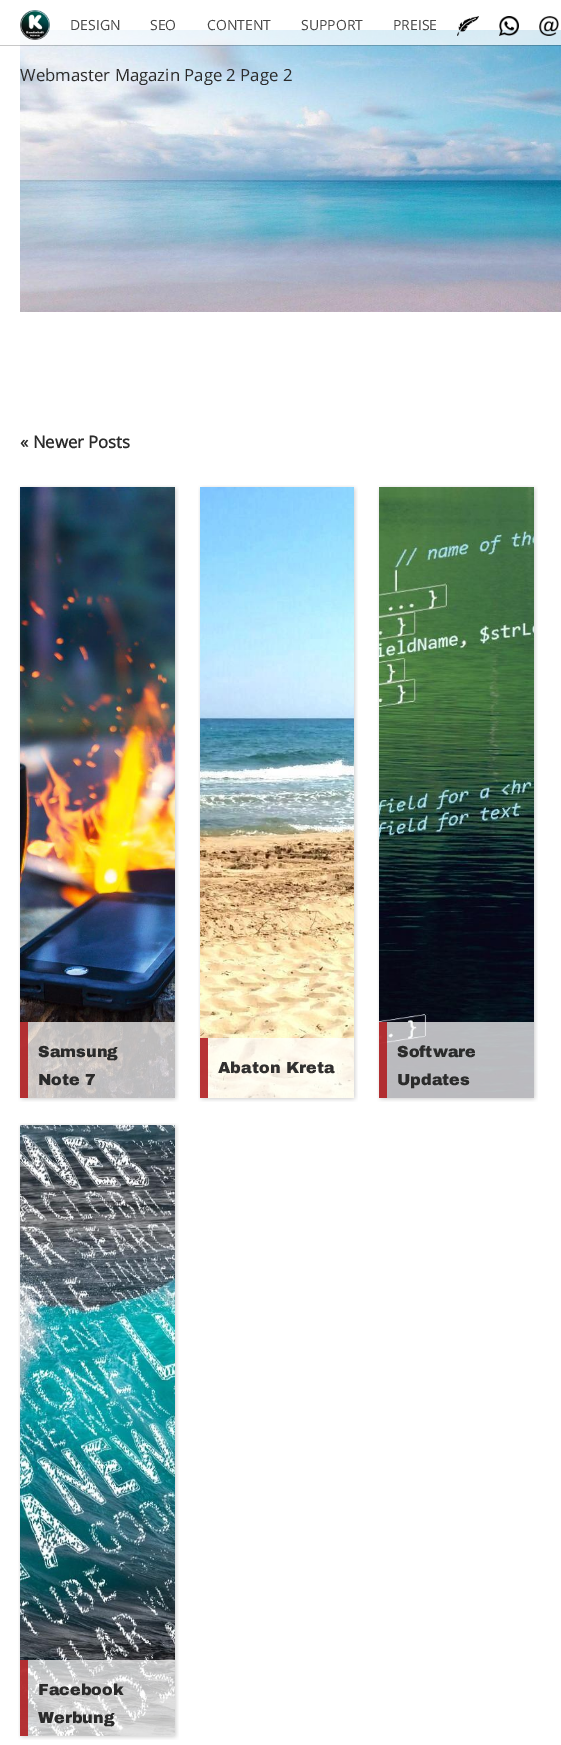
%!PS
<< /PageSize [561 1745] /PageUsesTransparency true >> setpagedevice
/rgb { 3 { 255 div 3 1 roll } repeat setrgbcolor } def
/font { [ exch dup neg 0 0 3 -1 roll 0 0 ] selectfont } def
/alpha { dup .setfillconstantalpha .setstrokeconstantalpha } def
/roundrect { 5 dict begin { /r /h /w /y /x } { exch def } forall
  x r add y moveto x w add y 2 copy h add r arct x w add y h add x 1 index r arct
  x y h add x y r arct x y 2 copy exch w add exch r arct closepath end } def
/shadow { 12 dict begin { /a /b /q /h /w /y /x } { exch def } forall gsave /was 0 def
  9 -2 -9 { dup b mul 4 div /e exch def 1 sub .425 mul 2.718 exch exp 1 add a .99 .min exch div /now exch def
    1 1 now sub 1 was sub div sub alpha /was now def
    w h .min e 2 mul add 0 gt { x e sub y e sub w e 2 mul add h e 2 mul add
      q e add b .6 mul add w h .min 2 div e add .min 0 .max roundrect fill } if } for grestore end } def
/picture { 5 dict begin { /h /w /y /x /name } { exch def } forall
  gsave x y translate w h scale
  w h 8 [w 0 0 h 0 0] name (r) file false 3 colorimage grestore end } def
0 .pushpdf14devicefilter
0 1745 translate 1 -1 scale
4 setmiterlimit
255 255 255 rgb
0 0 561 1745 rectfill
(img/5.rgb) 20 30 541 282 picture
gsave
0 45 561 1 rectclip
0 0 0 rgb
0 0 561 45 0 0.5 0.8 shadow
grestore
0.73 alpha
20 30 541 15 rectfill
1 alpha
(img/1.rgb) 20 10 30 30 picture
(img/2.rgb) 457 16 22 20 picture
(img/3.rgb) 499 16 20 20 picture
(img/4.rgb) 539 16 20 20 picture
(img/6.rgb) 18 485 161 617 picture
0.72 alpha
20 1022 155 76 rectfill
0.9 alpha
176 31 34 rgb
20 1022 8 76 rectfill
1 alpha
(img/7.rgb) 198 485 160 617 picture
0.72 alpha
255 255 255 rgb
200 1038 154 60 rectfill
0.9 alpha
176 31 34 rgb
200 1038 8 60 rectfill
1 alpha
(img/8.rgb) 377 485 161 617 picture
0.72 alpha
255 255 255 rgb
379 1022 155 76 rectfill
0.9 alpha
176 31 34 rgb
379 1022 8 76 rectfill
1 alpha
(img/9.rgb) 18 1123 161 617 picture
0.72 alpha
255 255 255 rgb
20 1660 155 76 rectfill
0.9 alpha
176 31 34 rgb
20 1660 8 76 rectfill
/OpenSans-Regular 14 font
1 alpha
71 71 71 rgb
[
  [(DESIGN) 70 30]
  [(SEO) 150 30]
  [(CONTENT) 207 30]
  [(SUPPORT) 301 30]
  [(PREISE) 393 30]
] { aload pop moveto show } forall
/OpenSans-Regular 16.75 font
43 43 43 rgb
20 81 moveto (Webmaster Magazin Page 2 Page 2) show
/OpenSans-Bold 16.75 font
20 448 moveto (« Newer Posts) show
/ArchivoBlack-Black 16 font
38 1057 moveto (Samsung) show
38 1085 moveto (Note 7) show
49 48 47 rgb
218 1073 moveto (Abaton Kreta) show
43 43 43 rgb
[
  [(Software) 397 1057]
  [(Updates) 397 1085]
  [(Facebook) 38 1695]
  [(Werbung) 38 1723]
] { aload pop moveto show } forall
.poppdf14devicefilter showpage
